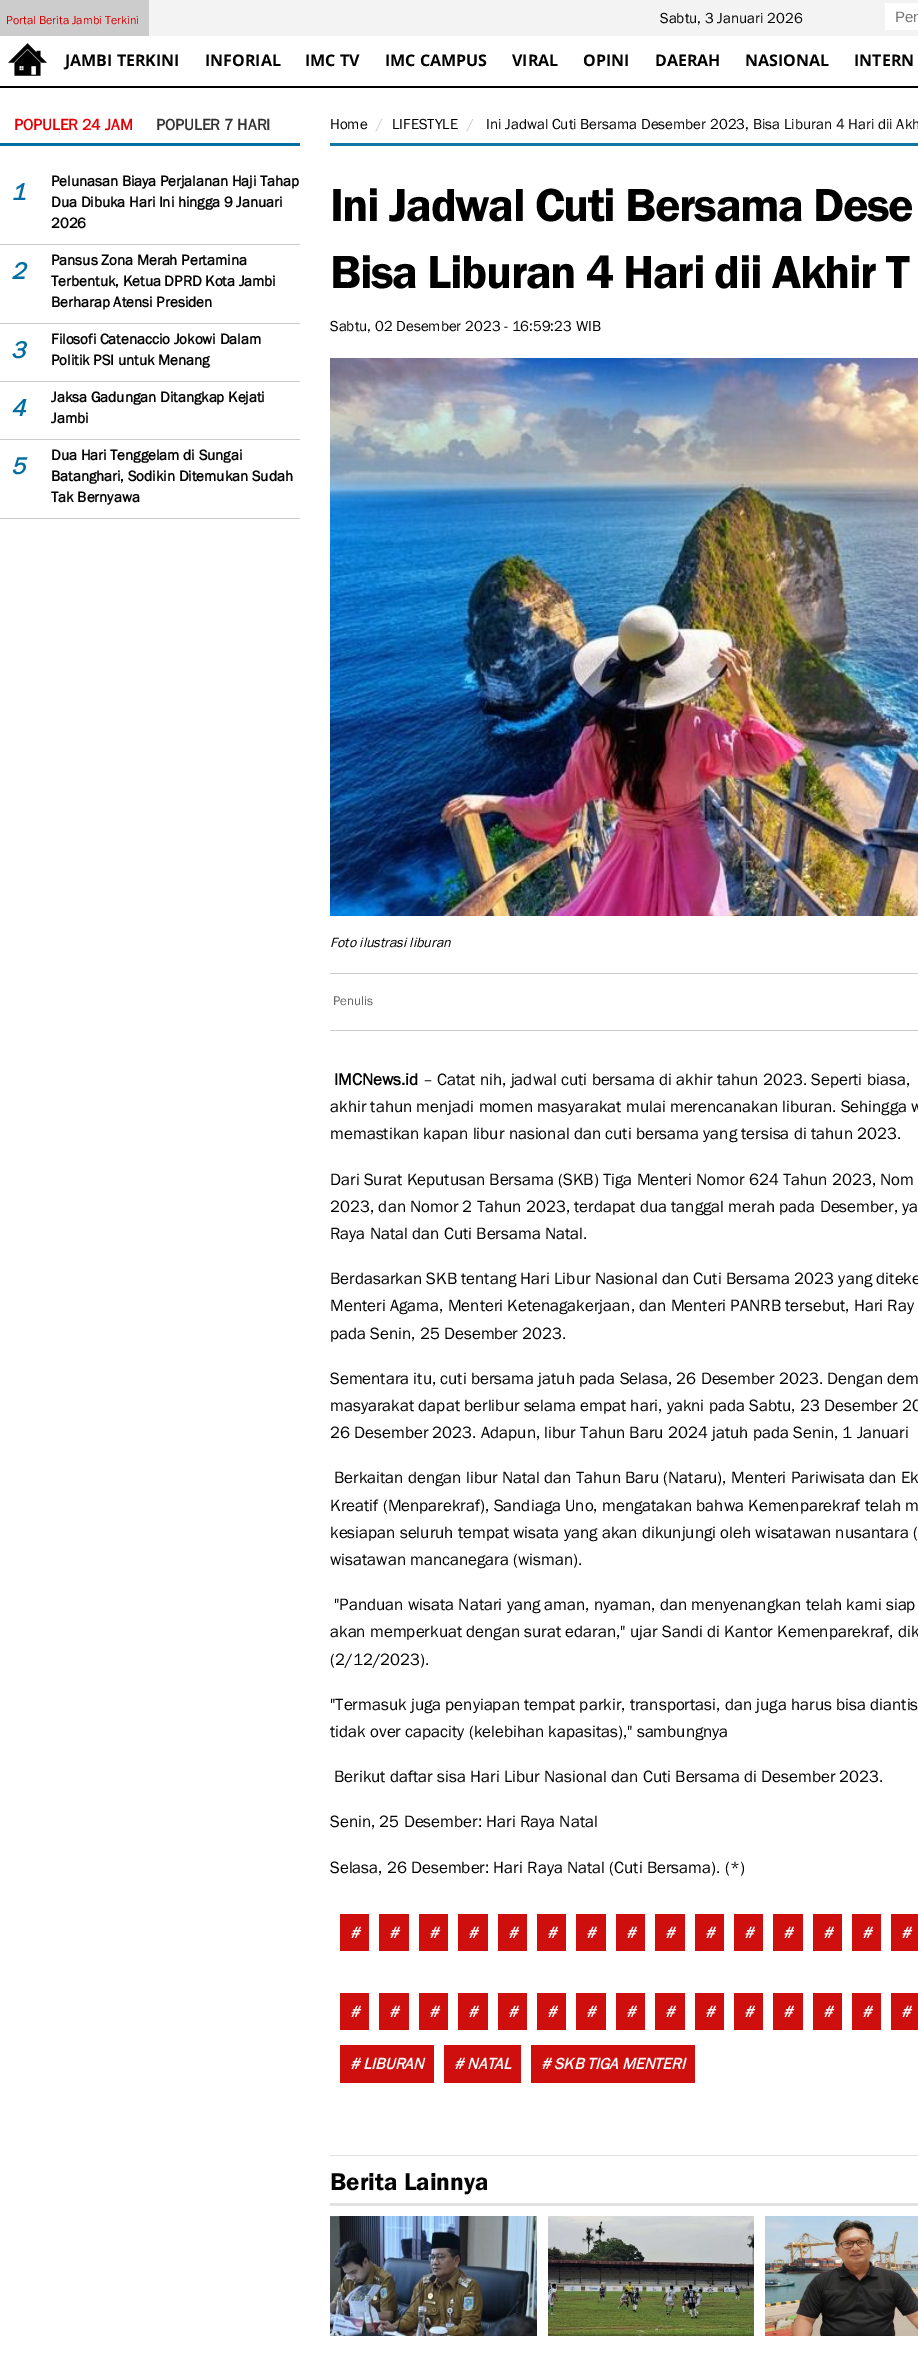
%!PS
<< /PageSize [918 2360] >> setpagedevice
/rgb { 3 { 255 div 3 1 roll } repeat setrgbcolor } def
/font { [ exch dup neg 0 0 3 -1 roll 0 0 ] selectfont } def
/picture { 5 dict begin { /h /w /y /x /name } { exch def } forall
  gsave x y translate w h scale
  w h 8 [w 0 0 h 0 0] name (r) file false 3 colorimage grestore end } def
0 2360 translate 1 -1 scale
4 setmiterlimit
255 255 255 rgb
0 0 918 2360 rectfill
[
  [149 0 769 36 243 243 243]
  [0 0 149 36 204 204 204]
  [885 3 33 27 255 255 255]
  [0 86 918 2 0 0 0]
] { aload pop rgb rectfill } forall
(img/1.rgb) 8 43 39 33 picture
[
  [0 143 300 3 0 110 161]
  [0 244 300 1 204 204 204]
  [0 323 300 1 204 204 204]
  [0 381 300 1 204 204 204]
  [0 439 300 1 204 204 204]
  [0 518 300 1 204 204 204]
  [330 143 588 3 19 117 163]
] { aload pop rgb rectfill } forall
(img/2.rgb) 330 358 588 558 picture
[
  [330 973 588 1 203 203 203]
  [330 1030 588 1 203 203 203]
  [340 1914 29 37 207 14 14]
  [379 1914 30 37 207 14 14]
  [419 1914 29 37 207 14 14]
  [458 1914 30 37 207 14 14]
  [498 1914 29 37 207 14 14]
  [537 1914 29 37 207 14 14]
  [576 1914 30 37 207 14 14]
  [616 1914 29 37 207 14 14]
  [655 1914 30 37 207 14 14]
  [695 1914 29 37 207 14 14]
  [734 1914 29 37 207 14 14]
  [773 1914 30 37 207 14 14]
  [813 1914 29 37 207 14 14]
  [852 1914 29 37 207 14 14]
  [891 1914 27 37 207 14 14]
  [340 1993 29 37 207 14 14]
  [379 1993 30 37 207 14 14]
  [419 1993 29 37 207 14 14]
  [458 1993 30 37 207 14 14]
  [498 1993 29 37 207 14 14]
  [537 1993 29 37 207 14 14]
  [576 1993 30 37 207 14 14]
  [616 1993 29 37 207 14 14]
  [655 1993 30 37 207 14 14]
  [695 1993 29 37 207 14 14]
  [734 1993 29 37 207 14 14]
  [773 1993 30 37 207 14 14]
  [813 1993 29 37 207 14 14]
  [852 1993 29 37 207 14 14]
  [891 1993 27 37 207 14 14]
  [340 2045 94 38 207 14 14]
  [444 2045 77 38 207 14 14]
  [531 2045 164 38 207 14 14]
  [330 2155 588 1 226 226 226]
  [330 2203 588 3 226 226 226]
] { aload pop rgb rectfill } forall
(img/3.rgb) 330 2216 207 120 picture
(img/4.rgb) 548 2216 206 120 picture
(img/5.rgb) 765 2216 153 120 picture
/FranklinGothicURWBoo-Regular 12 font
215 0 0 rgb
6 24 moveto (Portal Berita Jambi Terkini) show
/FranklinGothicURWBoo-Regular 15 font
0 0 0 rgb
660 23 moveto (Sabtu, 3 Januari 2026) show
/LiberationSans-Regular 15 font
117 117 117 rgb
895 22 moveto (Pen) show
/OpenSans-Bold 16 font
0 0 0 rgb
[
  [(JAMBI TERKINI) 65 66]
  [(INFORIAL) 205 66]
  [(IMC TV) 305 66]
  [(IMC CAMPUS) 385 66]
  [(VIRAL) 512 66]
  [(OPINI) 583 66]
  [(DAERAH) 655 66]
  [(NASIONAL) 745 66]
  [(INTERN) 854 66]
] { aload pop moveto show } forall
/FranklinGothicURWBoo-Bold 16 font
227 0 7 rgb
14 130 moveto (POPULER 24 JAM) show
51 51 51 rgb
156 130 moveto (POPULER 7 HARI) show
/FranklinGothicURWBoo-BoldItalic 24 font
0 110 161 rgb
11 200 moveto (1) show
/FranklinGothicURWBoo-Bold 15 font
0 0 0 rgb
[
  [(Pelunasan Biaya Perjalanan Haji Tahap) 51 186]
  [(Dua Dibuka Hari Ini hingga 9 Januari) 51 207]
  [(2026) 51 228]
] { aload pop moveto show } forall
/FranklinGothicURWBoo-BoldItalic 24 font
0 110 161 rgb
11 279 moveto (2) show
/FranklinGothicURWBoo-Bold 15 font
0 0 0 rgb
[
  [(Pansus Zona Merah Pertamina) 51 265]
  [(Terbentuk, Ketua DPRD Kota Jambi) 51 286]
  [(Berharap Atensi Presiden) 51 307]
] { aload pop moveto show } forall
/FranklinGothicURWBoo-BoldItalic 24 font
0 110 161 rgb
11 358 moveto (3) show
/FranklinGothicURWBoo-Bold 15 font
0 0 0 rgb
51 344 moveto (Filosofi Catenaccio Jokowi Dalam) show
51 365 moveto (Politik PSI untuk Menang) show
/FranklinGothicURWBoo-BoldItalic 24 font
0 110 161 rgb
11 416 moveto (4) show
/FranklinGothicURWBoo-Bold 15 font
0 0 0 rgb
51 402 moveto (Jaksa Gadungan Ditangkap Kejati) show
51 423 moveto (Jambi) show
/FranklinGothicURWBoo-BoldItalic 24 font
0 110 161 rgb
11 474 moveto (5) show
/FranklinGothicURWBoo-Bold 15 font
0 0 0 rgb
[
  [(Dua Hari Tenggelam di Sungai) 51 460]
  [(Batanghari, Sodikin Ditemukan Sudah) 51 481]
  [(Tak Bernyawa) 51 502]
] { aload pop moveto show } forall
/FranklinGothicURWBoo-Regular 15 font
330 129 moveto (Home) show
204 204 204 rgb
376 129 moveto (/) show
0 0 0 rgb
392 129 moveto (LIFESTYLE) show
204 204 204 rgb
467 129 moveto (/) show
0 0 0 rgb
486 129 moveto (Ini Jadwal Cuti Bersama Desember 2023, Bisa Liburan 4 Hari dii Akh) show
/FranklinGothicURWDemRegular-Regular 48 font
330 221 moveto -1.45 0 (Ini Jadwal Cuti Bersama Dese) ashow
330 288 moveto -1.45 0 (Bisa Liburan 4 Hari dii Akhir T) ashow
/FranklinGothicURWBoo-Regular 15 font
330 331 moveto (Sabtu, 02 Desember 2023 - 16:59:23 WIB) show
/FranklinGothicURWBoo-Italic 14 font
330 947 moveto (Foto ilustrasi liburan) show
/FranklinGothicURWBoo-Regular 13 font
102 102 102 rgb
333 1005 moveto (Penulis) show
/FranklinGothicURWBoo-Bold 17 font
0 0 0 rgb
334 1085 moveto (IMCNews.id) show
/FranklinGothicURWBoo-Regular 17 font
[
  [(– Catat nih, jadwal cuti bersama di akhir tahun 2023. Seperti biasa,) 423 1085]
  [(akhir tahun menjadi momen masyarakat mulai merencanakan liburan. Sehingga w) 330 1112]
  [(memastikan kapan libur nasional dan cuti bersama yang tersisa di tahun 2023.) 330 1139]
  [(Dari Surat Keputusan Bersama \(SKB\) Tiga Menteri Nomor 624 Tahun 2023, Nom) 330 1185]
  [(2023, dan Nomor 2 Tahun 2023, terdapat dua tanggal merah pada Desember, ya) 330 1212]
  [(Raya Natal dan Cuti Bersama Natal.) 330 1239]
  [(Berdasarkan SKB tentang Hari Libur Nasional dan Cuti Bersama 2023 yang diteke) 330 1284]
  [(Menteri Agama, Menteri Ketenagakerjaan, dan Menteri PANRB tersebut, Hari Ray) 330 1311]
  [(pada Senin, 25 Desember 2023.) 330 1339]
  [(Sementara itu, cuti bersama jatuh pada Selasa, 26 Desember 2023. Dengan dem) 330 1384]
  [(masyarakat dapat berlibur selama empat hari, yakni pada Sabtu, 23 Desember 20) 330 1411]
  [(26 Desember 2023. Adapun, libur Tahun Baru 2024 jatuh pada Senin, 1 Januari) 330 1438]
  [(Berkaitan dengan libur Natal dan Tahun Baru \(Nataru\), Menteri Pariwisata dan Ek) 334 1483]
  [(Kreatif \(Menparekraf\), Sandiaga Uno, mengatakan bahwa Kemenparekraf telah m) 330 1511]
  [(kesiapan seluruh tempat wisata yang akan dikunjungi oleh wisatawan nusantara \() 330 1538]
  [(wisatawan mancanegara \(wisman\).) 330 1565]
  [("Panduan wisata Natari yang aman, nyaman, dan menyenangkan telah kami siap) 334 1610]
  [(akan memperkuat dengan surat edaran," ujar Sandi di Kantor Kemenparekraf, dik) 330 1637]
  [(\(2/12/2023\).) 330 1665]
  [("Termasuk juga penyiapan tempat parkir, transportasi, dan juga harus bisa diantis) 330 1710]
  [(tidak over capacity \(kelebihan kapasitas\)," sambungnya) 330 1737]
  [(Berikut daftar sisa Hari Libur Nasional dan Cuti Bersama di Desember 2023.) 334 1782]
  [(Senin, 25 Desember: Hari Raya Natal) 330 1827]
  [(Selasa, 26 Desember: Hari Raya Natal \(Cuti Bersama\). \(*\)) 330 1873]
] { aload pop moveto show } forall
/FranklinGothicURWBoo-BoldItalic 16 font
255 255 255 rgb
[
  [(#) 350 1938]
  [(#) 389 1938]
  [(#) 429 1938]
  [(#) 468 1938]
  [(#) 508 1938]
  [(#) 547 1938]
  [(#) 586 1938]
  [(#) 626 1938]
  [(#) 665 1938]
  [(#) 705 1938]
  [(#) 744 1938]
  [(#) 783 1938]
  [(#) 823 1938]
  [(#) 862 1938]
  [(#) 901 1938]
  [(#) 350 2017]
  [(#) 389 2017]
  [(#) 429 2017]
  [(#) 468 2017]
  [(#) 508 2017]
  [(#) 547 2017]
  [(#) 586 2017]
  [(#) 626 2017]
  [(#) 665 2017]
  [(#) 705 2017]
  [(#) 744 2017]
  [(#) 783 2017]
  [(#) 823 2017]
  [(#) 862 2017]
  [(#) 901 2017]
  [(# LIBURAN) 350 2069]
  [(# NATAL) 454 2069]
  [(# SKB TIGA MENTERI) 541 2069]
] { aload pop moveto show } forall
/FranklinGothicURWDemRegular-Regular 25 font
0 0 0 rgb
330 2190 moveto (Berita Lainnya) show
showpage
